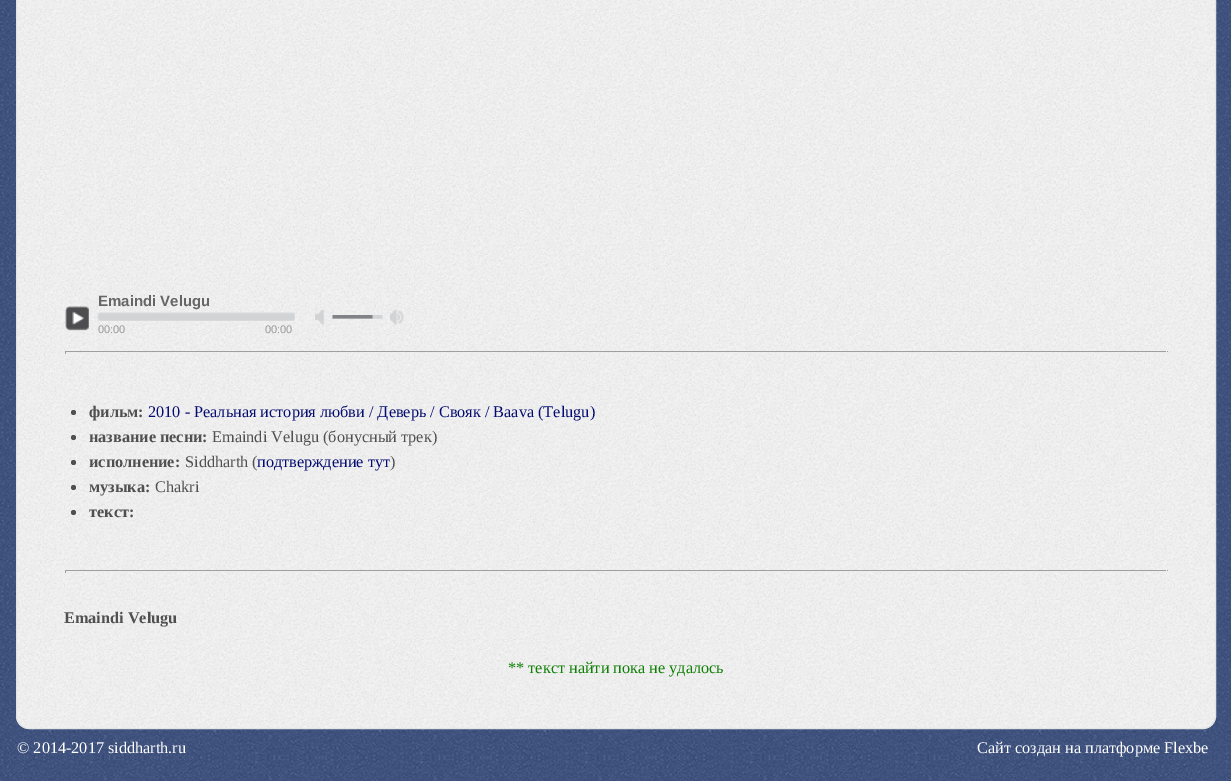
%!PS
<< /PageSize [1231 781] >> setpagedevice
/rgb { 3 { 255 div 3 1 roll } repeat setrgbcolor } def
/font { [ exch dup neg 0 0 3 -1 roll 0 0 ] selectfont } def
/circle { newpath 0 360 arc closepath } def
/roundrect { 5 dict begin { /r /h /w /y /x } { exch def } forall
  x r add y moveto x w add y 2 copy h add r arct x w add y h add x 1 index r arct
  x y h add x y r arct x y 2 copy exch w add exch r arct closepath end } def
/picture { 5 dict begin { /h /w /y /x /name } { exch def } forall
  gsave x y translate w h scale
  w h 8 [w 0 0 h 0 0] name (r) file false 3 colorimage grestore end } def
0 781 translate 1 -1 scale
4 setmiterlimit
54 80 143 rgb
0 0 1231 781 rectfill
(img/1.rgb) 0 0 1231 781 picture
242 242 242 rgb
16 -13 1200 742 13 roundrect fill
(img/2.rgb) 16 0 1200 729 picture
226 229 229 rgb
16.5 -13.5 1199 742 12.5 roundrect stroke
(img/3.rgb) 65 306 24 25 picture
(img/4.rgb) 315 309 9 16 picture
(img/5.rgb) 390 309 14 16 picture
(img/6.rgb) 99 312 196 9 picture
(img/7.rgb) 97 312 198 9 picture
(img/8.rgb) 332 315 51 4 picture
(img/9.rgb) 332 315 41 4 picture
[
  [65 351 1103 1 159 159 159]
  [1166 351 1 3 238 238 238]
  [65 353 1103 1 238 238 238]
  [65 351 1 3 159 159 159]
] { aload pop rgb rectfill } forall
80 80 80 rgb
73.5 412.5 2.5 circle fill
73.5 437.5 2.5 circle fill
73.5 462.5 2.5 circle fill
73.5 487.5 2.5 circle fill
73.5 512.5 2.5 circle fill
[
  [65 570 1103 1 159 159 159]
  [1166 570 1 3 238 238 238]
  [65 571 1103 1 238 238 238]
  [65 570 1 3 159 159 159]
] { aload pop rgb rectfill } forall
/LiberationSans-Bold 15 font
102 102 102 rgb
98 306 moveto (Emaindi Velugu) show
/LiberationSans-Regular 11 font
153 153 153 rgb
98 333 moveto (00:00) show
265 333 moveto (00:00) show
/LiberationSerif-Bold 16.25 font
80 80 80 rgb
89 417 moveto (фильм:) show
/LiberationSerif-Regular 16.25 font
5 12 113 rgb
148 417 moveto (2010 - Реальная история любви / Деверь / Свояк / Baava \(Telugu\)) show
/LiberationSerif-Bold 16.25 font
80 80 80 rgb
89 442 moveto (название песни:) show
/LiberationSerif-Regular 16.25 font
212 442 moveto (Emaindi Velugu \(бонусный трек\)) show
/LiberationSerif-Bold 16.25 font
89 467 moveto (исполнение:) show
/LiberationSerif-Regular 16.25 font
185 467 moveto (Siddharth \() show
5 12 113 rgb
257 467 moveto (подтверждение тут) show
80 80 80 rgb
390 467 moveto (\)) show
/LiberationSerif-Bold 16.25 font
89 492 moveto (музыка:) show
/LiberationSerif-Regular 16.25 font
155 492 moveto (Chakri) show
/LiberationSerif-Bold 16.25 font
89 517 moveto (текст:) show
64 623 moveto (Emaindi Velugu) show
/LiberationSerif-Regular 16.25 font
15 128 5 rgb
508 673 moveto (** текст найти пока не удалось) show
255 255 255 rgb
17 753 moveto (© 2014-2017 siddharth.ru) show
977 753 moveto (Сайт создан на платформе Flexbe) show
showpage
